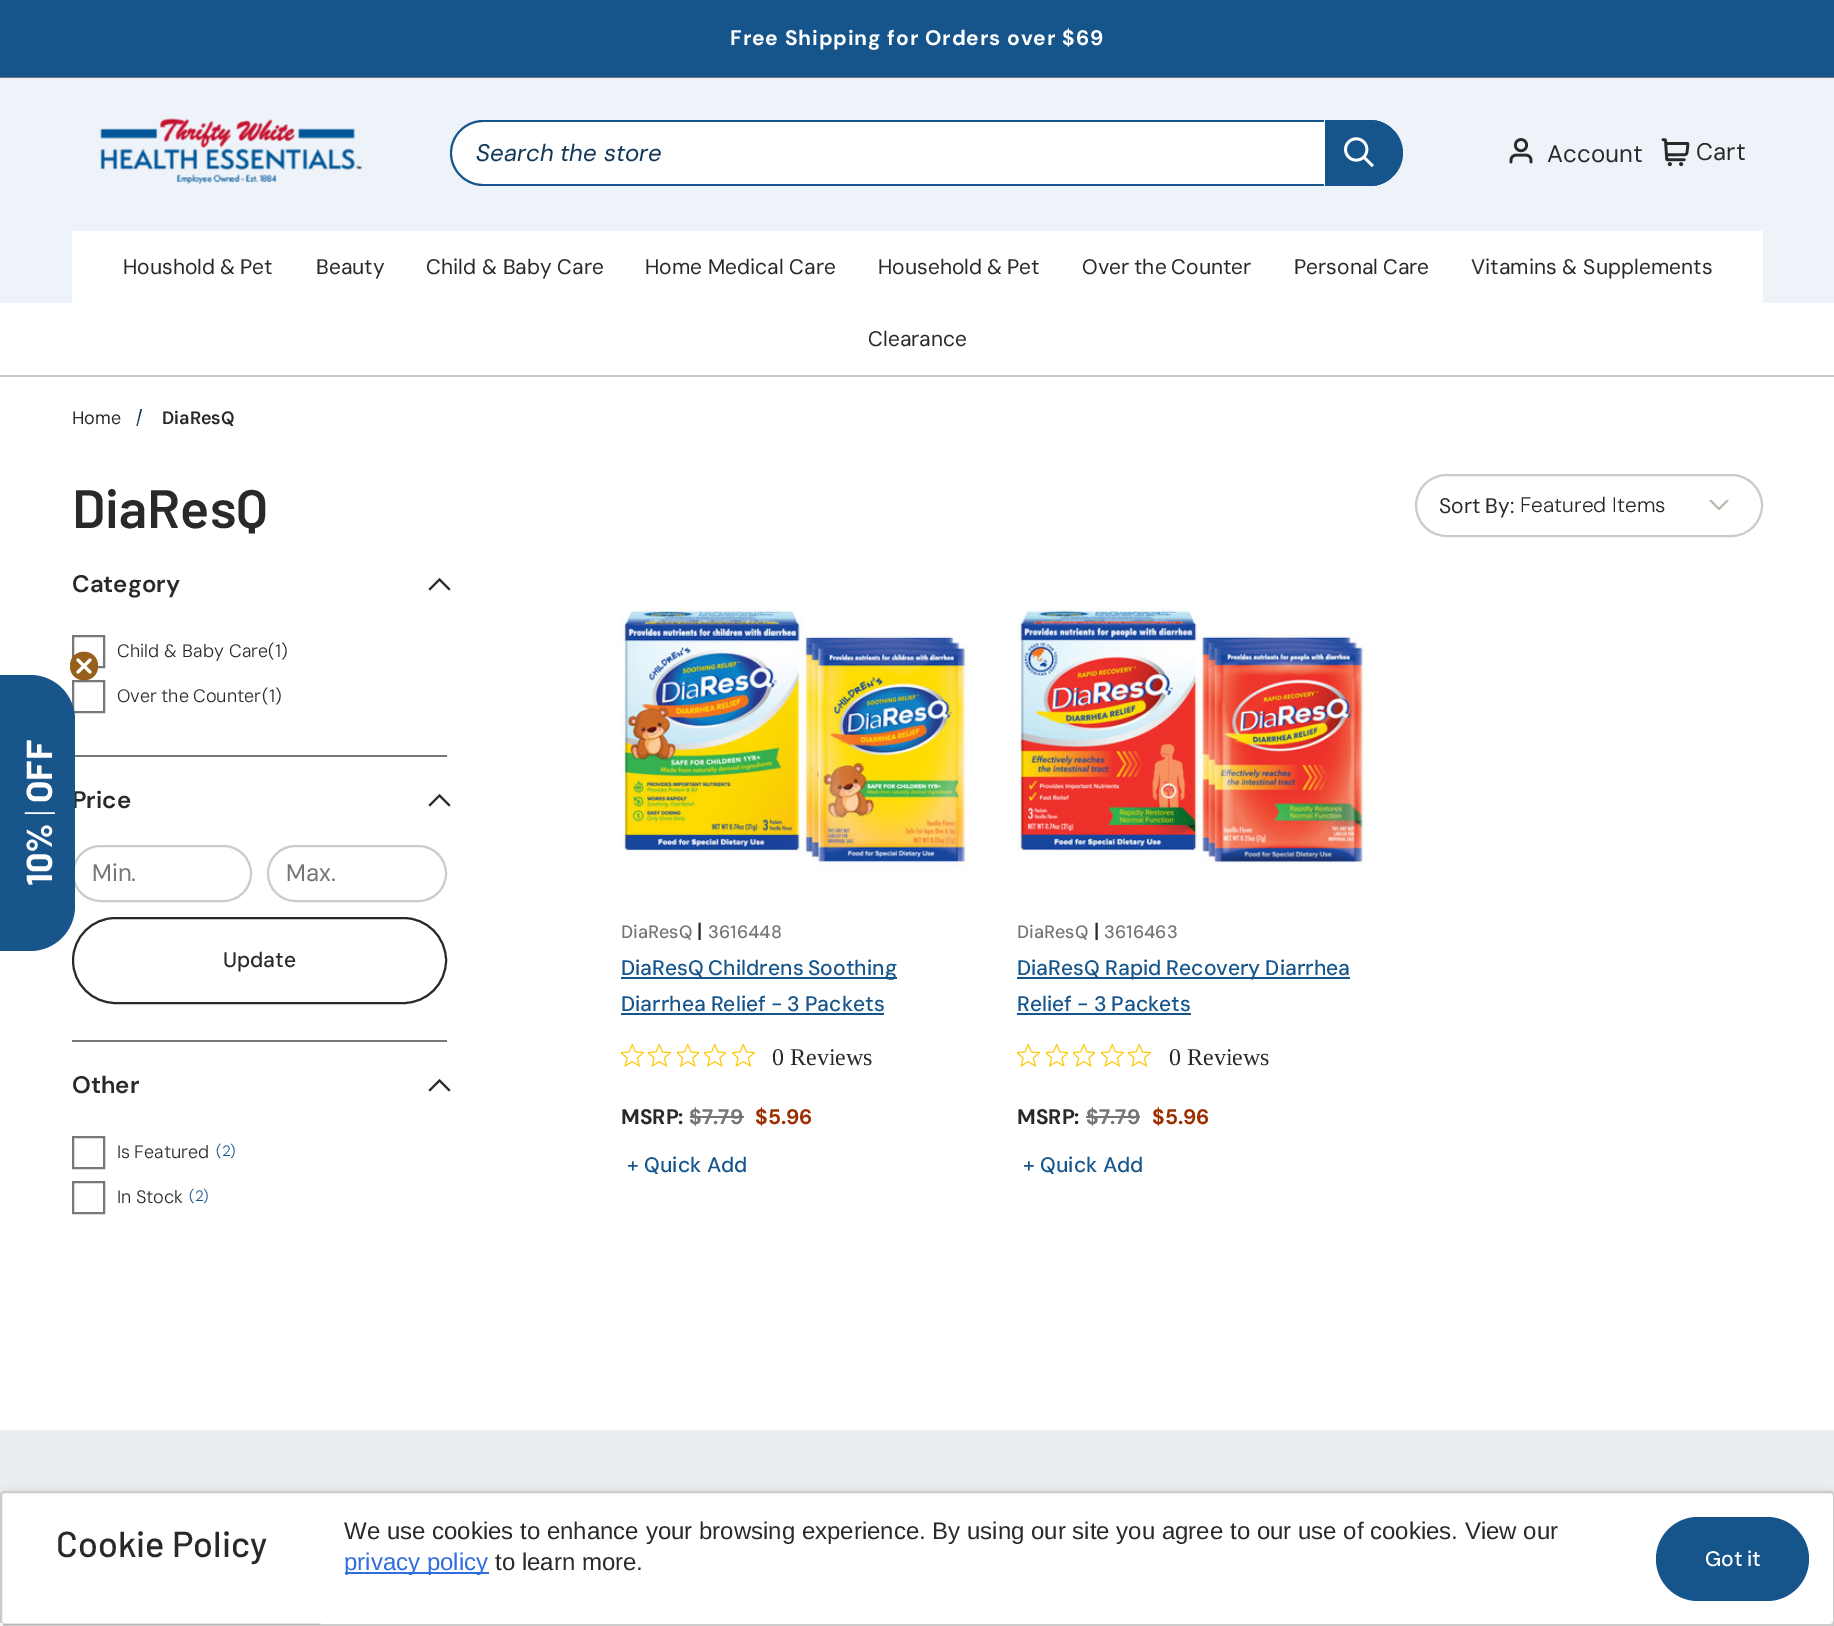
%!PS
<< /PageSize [1834 1626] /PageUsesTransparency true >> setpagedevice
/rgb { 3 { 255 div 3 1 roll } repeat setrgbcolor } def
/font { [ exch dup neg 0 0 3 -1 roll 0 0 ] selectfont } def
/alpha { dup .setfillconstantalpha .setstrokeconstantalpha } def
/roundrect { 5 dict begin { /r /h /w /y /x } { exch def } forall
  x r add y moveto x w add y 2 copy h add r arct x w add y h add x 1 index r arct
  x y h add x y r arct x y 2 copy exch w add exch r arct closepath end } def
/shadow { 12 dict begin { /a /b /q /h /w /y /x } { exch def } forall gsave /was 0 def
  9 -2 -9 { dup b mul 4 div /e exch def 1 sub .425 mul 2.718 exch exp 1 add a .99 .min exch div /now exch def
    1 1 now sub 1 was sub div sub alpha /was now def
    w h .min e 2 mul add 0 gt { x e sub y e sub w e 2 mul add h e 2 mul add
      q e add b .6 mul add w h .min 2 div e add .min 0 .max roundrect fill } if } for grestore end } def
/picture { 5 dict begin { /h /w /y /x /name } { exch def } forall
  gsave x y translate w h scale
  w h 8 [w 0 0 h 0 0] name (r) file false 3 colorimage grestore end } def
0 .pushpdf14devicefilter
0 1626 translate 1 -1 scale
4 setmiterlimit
255 255 255 rgb
0 0 1834 1626 rectfill
[
  [0 0 1834 77 22 85 140]
  [0 77 1834 1 118 119 119]
  [0 78 1834 225 238 243 250]
  [0 375 1834 2 201 203 207]
] { aload pop rgb rectfill } forall
(img/1.rgb) 100 118 262 67 picture
22 85 140 rgb
1325 120 moveto 1370 120 lineto 1388 120 1403 135 1403 153 curveto 1403 171 1388 186 1370 186 curveto 1325 186 lineto closepath fill
1324 120 moveto 1370 120 lineto 1388 120 1402 135 1402 153 curveto 1402 171 1388 186 1370 186 curveto 1324 186 lineto closepath 1324 122 moveto 1370 122 lineto 1387 122 1401 136 1401 153 curveto 1401 170 1387 184 1370 184 curveto 1324 184 lineto closepath eofill
255 255 255 rgb
483 120 moveto 1325 120 lineto 1325 186 lineto 483 186 lineto 465 186 450 171 450 153 curveto 450 135 465 120 483 120 curveto closepath fill
22 85 140 rgb
483 120 moveto 1324 120 lineto 1324 186 lineto 483 186 lineto 465 186 450 171 450 153 curveto 450 135 465 120 483 120 curveto closepath 483 122 moveto 1324 122 lineto 1324 184 lineto 483 184 lineto 466 184 452 170 452 153 curveto 452 136 466 122 483 122 curveto closepath eofill
(img/2.rgb) 1344 137 30 31 picture
(img/3.rgb) 1509 138 24 26 picture
(img/4.rgb) 1661 138 29 29 picture
255 255 255 rgb
72 231 1691 72 rectfill
18 55 88 rgb
142 409 moveto 137.5 426 lineto 136.5 426 lineto 140.5 409 lineto closepath fill
41 41 42 rgb
428.5 589 moveto 430 590.5 lineto 439.5 581 lineto 449 590.5 lineto 450.5 589 lineto 439.5 578 lineto closepath fill
118 119 119 rgb
2 setlinewidth
73 636 31 31 rectstroke
73 681 31 31 rectstroke
72 755 375 2 rectfill
41 41 42 rgb
428.5 805 moveto 430 806.5 lineto 439.5 797 lineto 449 806.5 lineto 450.5 805 lineto 439.5 794 lineto closepath fill
201 203 207 rgb
73 846 178 55 27.5 roundrect stroke
268 846 178 55 27.5 roundrect stroke
41 41 42 rgb
73 918 373 85 42.5 roundrect stroke
118 119 119 rgb
72 1040 375 2 rectfill
41 41 42 rgb
428.5 1090 moveto 430 1091.5 lineto 439.5 1082 lineto 449 1091.5 lineto 450.5 1090 lineto 439.5 1079 lineto closepath fill
118 119 119 rgb
73 1137 31 31 rectstroke
73 1182 31 31 rectstroke
201 203 207 rgb
1416 475 346 61 30.5 roundrect stroke
gsave
1709 500 21 10 rectclip
185 185 173 rgb
2.1 setlinewidth
1 setlinecap
1 setlinejoin
1727.5 500.5 moveto 1719 509 lineto 1710.5 500.5 lineto stroke
grestore
(img/5.rgb) 621 607 348 261 picture
22 85 140 rgb
621 977 276 2 rectfill
621 1013 263 2 rectfill
(img/6.rgb) 621 1044 23 23 picture
(img/6.rgb) 648 1044 23 23 picture
(img/7.rgb) 677 1044 22 23 picture
(img/7.rgb) 704 1044 22 23 picture
(img/6.rgb) 732 1044 23 23 picture
(img/8.rgb) 1017 607 349 259 picture
1017 977 333 2 rectfill
1017 1013 174 2 rectfill
(img/6.rgb) 1017 1044 23 23 picture
(img/7.rgb) 1046 1044 22 23 picture
(img/7.rgb) 1073 1044 22 23 picture
(img/6.rgb) 1101 1044 23 23 picture
(img/6.rgb) 1128 1044 23 23 picture
235 238 241 rgb
0 1430 1834 196 rectfill
0 0 0 rgb
0 1497 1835 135 5 6 0.3 shadow
255 255 255 rgb
0 1491 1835 135 5 roundrect fill
0.2 alpha
0 0 0 rgb
1 1492 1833 133 4 roundrect stroke
0.1 alpha
2 1623 319 2 rectfill
1 alpha
47 108 221 rgb
345 1572 144 2 rectfill
22 85 140 rgb
1656 1517 153 84 42 roundrect fill
245 245 245 rgb
0 1623 3 3 rectfill
/DMSans-Bold 21 font
255 255 255 rgb
730 45 moveto 0.85 0 (Free Shipping for Orders over $69) ashow
/DMSans-Italic 24 font
18 55 88 rgb
476 161 moveto (Search the store) show
/DMSans-Regular 24 font
41 41 42 rgb
1547 162 moveto (Account) show
1696 160 moveto (Cart) show
/DMSans-Regular 21 font
123 274 moveto -1 0 32 (Houshold & Pet) widthshow
[
  [(Beauty) 316 274]
  [(Child & Baby Care) 426 274]
  [(Home Medical Care) 645 274]
] { aload pop moveto show } forall
878 274 moveto -1 0 32 (Household & Pet) widthshow
1082 274 moveto -1 0 32 (Over the Counter) widthshow
1294 274 moveto -1 0 32 (Personal Care) widthshow
1471 274 moveto (Vitamins & Supplements) show
868 346 moveto (Clearance) show
/DMSans-Regular 18 font
72 424 moveto (Home) show
/DMSans-SemiBold 18 font
162 424 moveto (DiaResQ) show
/Barlow-SemiBold 54 font
72 528 moveto (DiaResQ) show
/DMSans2-SemiBold 24 font
72 592 moveto (Category) show
/DMSans-Light 18 font
117 657 moveto (Child & Baby Care) show
268 657 moveto (\(1\)) show
117 702 moveto -1 0 32 (Over the Counter) widthshow
262 702 moveto (\(1\)) show
/DMSans2-SemiBold 24 font
72 808 moveto (Price) show
23 85 139 rgb
0 951 moveto 0 675 lineto 30 675 lineto 55 675 75 695 75 720 curveto 75 906 lineto 75 931 55 951 30 951 curveto closepath fill
151 97 28 rgb
70 666 moveto 70 647 98 647 98 666 curveto 98 685 70 685 70 666 curveto closepath fill
255 255 255 rgb
3 setlinewidth
1 setlinecap
1 setlinejoin
78 672 moveto 90 660 lineto 90 672 moveto 78 660 lineto closepath stroke
/Barlow-Bold 36 font
gsave 52 803 translate -90 rotate 0 0 moveto (OFF) show grestore
/Barlow-Light 36 font
gsave 52 816 translate -90 rotate 0 0 moveto (|) show grestore
/Barlow-Bold 36 font
gsave 52 886 translate -90 rotate 0 0 moveto (10%) show grestore
/DMSans-Regular 24 font
117 117 117 rgb
92 881 moveto (Min.) show
286 881 moveto (Max.) show
/DMSans-Medium 21 font
41 41 42 rgb
223 967 moveto (Update) show
/DMSans2-SemiBold 24 font
72 1093 moveto (Other) show
/DMSans-Light 18 font
117 1158 moveto -1 0 32 (Is Featured) widthshow
/DMSans-Light 15 font
22 85 140 rgb
216 1156 moveto (\(2\)) show
/DMSans-Light 18 font
41 41 42 rgb
117 1203 moveto -1 0 32 (In Stock) widthshow
/DMSans-Light 15 font
22 85 140 rgb
189 1201 moveto (\(2\)) show
/DMSans-Regular 21 font
41 41 42 rgb
1439 513 moveto -1 0 32 (Sort By:) widthshow
/DMSans2-Light 21 font
1520 512 moveto (Featured Items) show
/DMSans-Medium 18 font
117 117 117 rgb
621 938 moveto (DiaResQ) show
/DMSans-Medium 21 font
41 41 42 rgb
697 938 moveto (|) show
/DMSans-Medium 18 font
117 117 117 rgb
708 938 moveto (3616448) show
/DMSans-Medium 21 font
22 85 140 rgb
621 975 moveto -1 0 32 (DiaResQ Childrens Soothing) widthshow
621 1011 moveto -0.5 0 32 (Diarrhea Relief - 3 Packets) widthshow
/LiberationSerif-Regular 24 font
41 41 42 rgb
772 1065 moveto (0 Reviews) show
/DMSans-Bold 21 font
621 1124 moveto (MSRP:) show
117 117 117 rgb
689 1124 moveto ($7.79) show
117 117 119 rgb
690 1116 54 2 rectfill
156 47 0 rgb
755 1124 moveto ($5.96) show
gsave
627 1146 120 36 18 roundrect clip newpath
/DMSans-Medium 21 font
22 85 140 rgb
627 1172 moveto (+ Quick Add) show
grestore
/DMSans-Medium 18 font
117 117 117 rgb
1017 938 moveto (DiaResQ) show
/DMSans-Medium 21 font
41 41 42 rgb
1094 938 moveto (|) show
/DMSans-Medium 18 font
117 117 117 rgb
1104 938 moveto (3616463) show
/DMSans-Medium 21 font
22 85 140 rgb
1017 975 moveto -0.5 0 32 (DiaResQ Rapid Recovery Diarrhea) widthshow
1017 1011 moveto -0.5 0 32 (Relief - 3 Packets) widthshow
/LiberationSerif-Regular 24 font
41 41 42 rgb
1169 1065 moveto (0 Reviews) show
/DMSans-Bold 21 font
1017 1124 moveto (MSRP:) show
117 117 117 rgb
1086 1124 moveto ($7.79) show
117 117 119 rgb
1086 1116 54 2 rectfill
156 47 0 rgb
1152 1124 moveto ($5.96) show
/DMSans-Medium 21 font
22 85 140 rgb
1023 1172 moveto (+ Quick Add) show
/Barlow-Medium 36 font
41 41 42 rgb
56 1557 moveto (Cookie Policy) show
/LiberationSans-Regular 24 font
344 1539 moveto (We use cookies to enhance your browsing experience. By using our site you agree to our use of cookies. View our) show
47 108 221 rgb
344 1570 moveto (privacy policy) show
41 41 42 rgb
495 1570 moveto (to learn more.) show
/DMSans-Medium 21 font
255 255 255 rgb
1705 1566 moveto -1 0 32 (Got it) widthshow
.poppdf14devicefilter showpage
